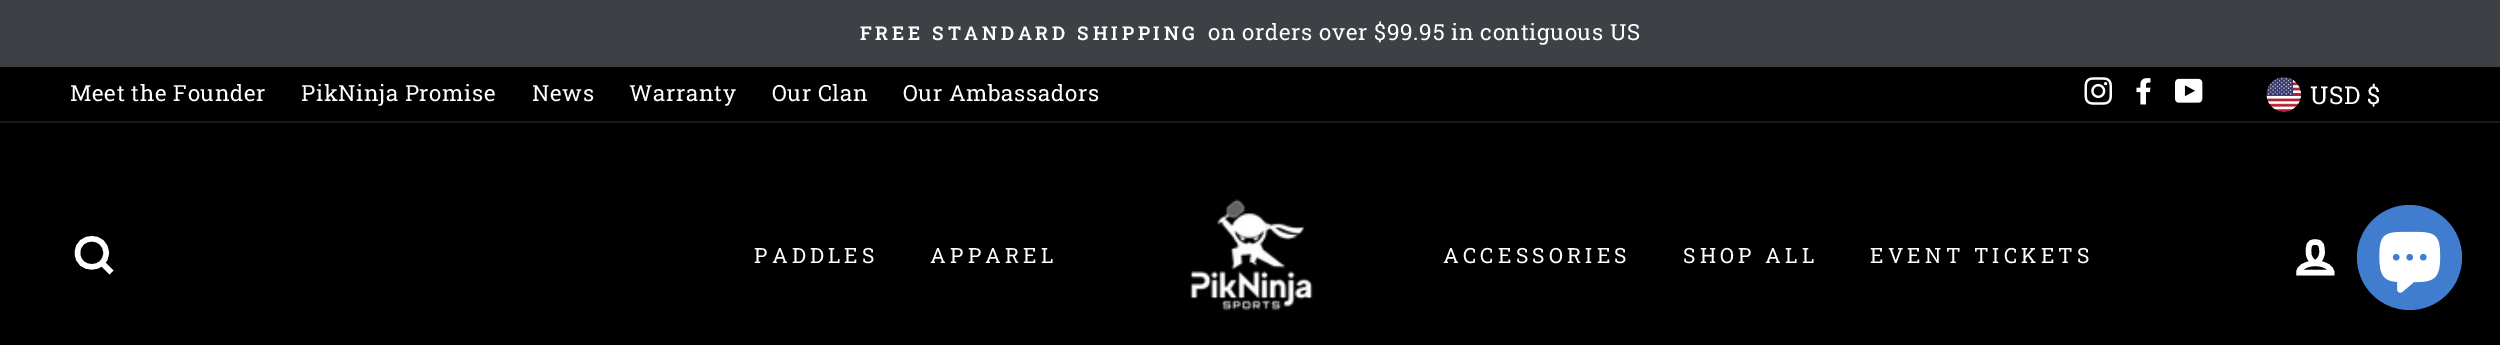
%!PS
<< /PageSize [2500 345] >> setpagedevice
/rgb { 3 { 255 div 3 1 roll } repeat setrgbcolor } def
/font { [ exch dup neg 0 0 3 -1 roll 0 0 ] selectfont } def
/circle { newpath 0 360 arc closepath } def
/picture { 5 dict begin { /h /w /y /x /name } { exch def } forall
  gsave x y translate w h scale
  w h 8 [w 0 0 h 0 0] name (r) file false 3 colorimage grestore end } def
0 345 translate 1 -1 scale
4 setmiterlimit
0 0 0 rgb
0 0 2500 345 rectfill
61 65 70 rgb
0 0 2500 67 rectfill
(img/1.rgb) 2084 77 28 28 picture
(img/2.rgb) 2136 78 15 27 picture
(img/3.rgb) 2175 78 28 25 picture
(img/4.rgb) 2266 77 36 35 picture
26 26 26 rgb
0 121 2500 2 rectfill
255 255 255 rgb
5.4 setlinewidth
106 253 moveto 106 271.5 77.5 271.5 77.5 253 curveto 77.5 234 106 234 106 253 curveto closepath 111.5 272.5 moveto 102 263 lineto stroke
(img/5.rgb) 1190 199 123 112 picture
2317.5 263.5 moveto 2317.5 261.5 lineto 2320 260 2322 256 2322 252.5 curveto 2322 246.5 2322 242 2315 242 curveto 2308.5 242 2308.5 246.5 2308.5 252.5 curveto 2308.5 256 2310.5 260 2313 261.5 curveto 2313 263.5 lineto 2305 264 2299 268 2299 272.5 curveto 2331.5 272.5 lineto 2331.5 268 2325.5 264 2317.5 263.5 curveto closepath stroke
64 125 206 rgb
2409.5 257.5 52.5 circle fill
(img/6.rgb) 2379 231 62 62 picture
/RobotoSlab-SemiBold 19 font
255 255 255 rgb
860 40 moveto 3.75 0 (FREE STANDARD SHIPPING) ashow
/RobotoSlab-Regular 22.3 font
1208 40 moveto 0.65 0 (on orders over $99.95 in contiguous US) ashow
70 101 moveto 0.65 0 (Meet the Founder) ashow
301 101 moveto 0.65 0 (PikNinja Promise) ashow
532 101 moveto 0.65 0 (News) ashow
629 101 moveto 0.65 0 (Warranty) ashow
772 101 moveto 0.65 0 (Our Clan) ashow
903 101 moveto 0.65 0 (Our Ambassadors) ashow
/RobotoSlab-Regular 24.5 font
2310 104 moveto 0.5 0 (USD $) ashow
/RobotoSlab-Regular 21 font
754 263 moveto 4.25 0 (PADDLES) ashow
930 263 moveto 4.25 0 (APPAREL) ashow
1443 263 moveto 4.25 0 (ACCESSORIES) ashow
1683 263 moveto 4.25 0 (SHOP ALL) ashow
1870 263 moveto 4.25 0 (EVENT TICKETS) ashow
showpage
